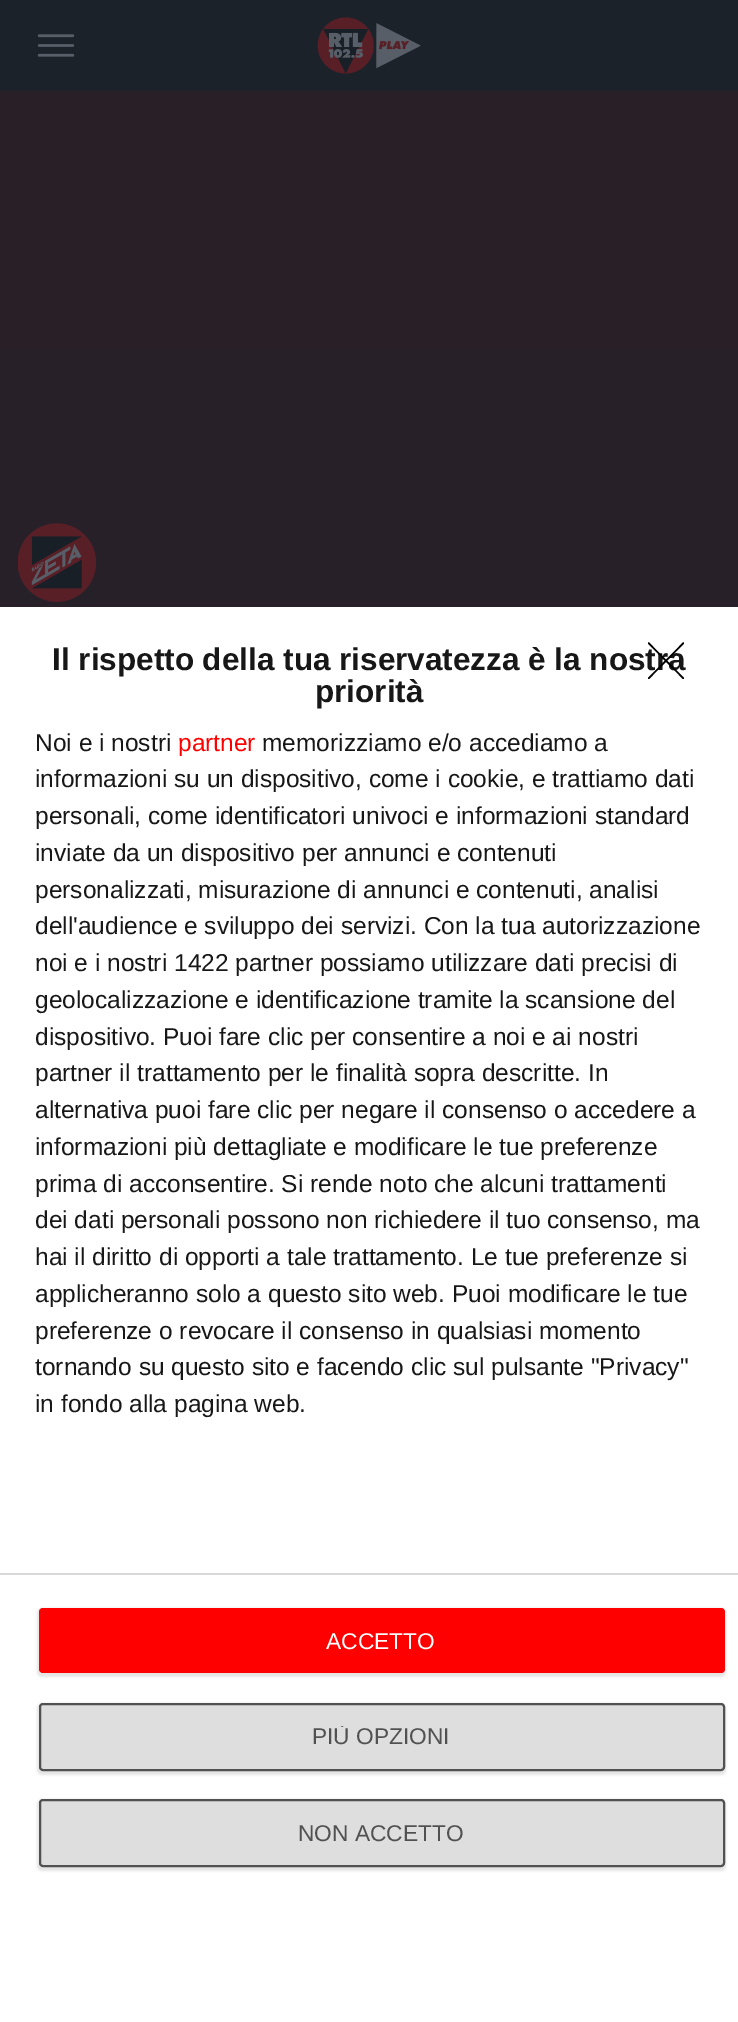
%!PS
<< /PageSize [738 2022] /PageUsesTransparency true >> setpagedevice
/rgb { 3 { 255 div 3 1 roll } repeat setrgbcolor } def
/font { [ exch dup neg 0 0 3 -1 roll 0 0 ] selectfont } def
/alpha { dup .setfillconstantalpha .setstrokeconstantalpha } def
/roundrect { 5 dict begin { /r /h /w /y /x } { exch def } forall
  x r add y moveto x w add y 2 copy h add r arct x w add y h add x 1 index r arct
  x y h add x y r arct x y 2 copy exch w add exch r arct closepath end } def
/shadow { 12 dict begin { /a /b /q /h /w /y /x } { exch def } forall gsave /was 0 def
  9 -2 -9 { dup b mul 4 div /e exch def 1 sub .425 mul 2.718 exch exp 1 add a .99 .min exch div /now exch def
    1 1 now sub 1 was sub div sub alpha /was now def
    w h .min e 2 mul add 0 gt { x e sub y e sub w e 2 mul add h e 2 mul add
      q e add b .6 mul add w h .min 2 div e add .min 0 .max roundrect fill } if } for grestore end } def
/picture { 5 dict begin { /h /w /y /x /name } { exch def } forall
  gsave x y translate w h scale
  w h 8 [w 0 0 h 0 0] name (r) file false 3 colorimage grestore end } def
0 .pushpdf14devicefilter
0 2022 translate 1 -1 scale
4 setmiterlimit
255 255 255 rgb
0 0 738 2022 rectfill
gsave 0 91 moveto 738 91 lineto 738 607 lineto 0 607 lineto closepath clip newpath
<< /ShadingType 2 /ColorSpace /DeviceRGB /Coords [369 0 369 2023] /Extend [true true] /Function << /FunctionType 2 /Domain [0 1] /C0 [0.169 0.122 0.153] /C1 [0.11 0.133 0.165] /N 1 >> >> shfill grestore
28 34 42 rgb
0 0 738 91 rectfill
(img/1.rgb) 37 34 38 23 picture
(img/2.rgb) 317 17 104 57 picture
(img/3.rgb) 18 523 78 79 picture
216 216 216 rgb
0 1573 738 2 rectfill
0 0 0 rgb
37 1608 689 69 5 1 0.1 shadow
255 0 0 rgb
39 1608 686 65 4 roundrect fill
0 0 0 rgb
37 1703 689 72 5 1 0.1 shadow
222 222 222 rgb
40 1704 684 66 3 roundrect gsave fill grestore
81 81 81 rgb
2 setlinewidth
stroke
0 0 0 rgb
37 1799 689 72 5 1 0.1 shadow
222 222 222 rgb
40 1800 684 66 3 roundrect gsave fill grestore
81 81 81 rgb
stroke
/LiberationSans-Bold 31.5 font
23 23 23 rgb
52 670 moveto (Il rispetto della tua riservatezza è la nostra) show
gsave
648 642 36 37 rectclip
0 0 0 rgb
1.5 setlinewidth
1 setlinecap
1 setlinejoin
648.5 643 moveto 683.5 678.5 lineto 683.5 643 moveto 648.5 678.5 lineto stroke
grestore
315 702 moveto (priorità) show
/LiberationSans-Regular 24.5 font
35 751 moveto (Noi e i nostri) show
255 0 0 rgb
178 751 moveto (partner) show
23 23 23 rgb
[
  [(memorizziamo e/o accediamo a) 262 751]
  [(informazioni su un dispositivo, come i cookie, e trattiamo dati) 35 787]
  [(personali, come identificatori univoci e informazioni standard) 35 824]
  [(inviate da un dispositivo per annunci e contenuti) 35 861]
  [(personalizzati, misurazione di annunci e contenuti, analisi) 35 898]
  [(dell'audience e sviluppo dei servizi. Con la tua autorizzazione) 35 934]
  [(noi e i nostri 1422 partner possiamo utilizzare dati precisi di) 35 971]
  [(geolocalizzazione e identificazione tramite la scansione del) 35 1008]
  [(dispositivo. Puoi fare clic per consentire a noi e ai nostri) 35 1045]
  [(partner il trattamento per le finalità sopra descritte. In) 35 1081]
  [(alternativa puoi fare clic per negare il consenso o accedere a) 35 1118]
  [(informazioni più dettagliate e modificare le tue preferenze) 35 1155]
  [(prima di acconsentire. Si rende noto che alcuni trattamenti) 35 1192]
  [(dei dati personali possono non richiedere il tuo consenso, ma) 35 1228]
  [(hai il diritto di opporti a tale trattamento. Le tue preferenze si) 35 1265]
  [(applicheranno solo a questo sito web. Puoi modificare le tue) 35 1302]
  [(preferenze o revocare il consenso in qualsiasi momento) 35 1339]
  [(tornando su questo sito e facendo clic sul pulsante "Privacy") 35 1375]
  [(in fondo alla pagina web.) 35 1412]
] { aload pop moveto show } forall
/LiberationSans-Regular 22.75 font
255 255 255 rgb
326 1649 moveto (ACCETTO) show
gsave
312 1726 138 22 rectclip
81 81 81 rgb
312 1744 moveto (PIÙ OPZIONI) show
grestore
81 81 81 rgb
298 1841 moveto (NON ACCETTO) show
.poppdf14devicefilter showpage
